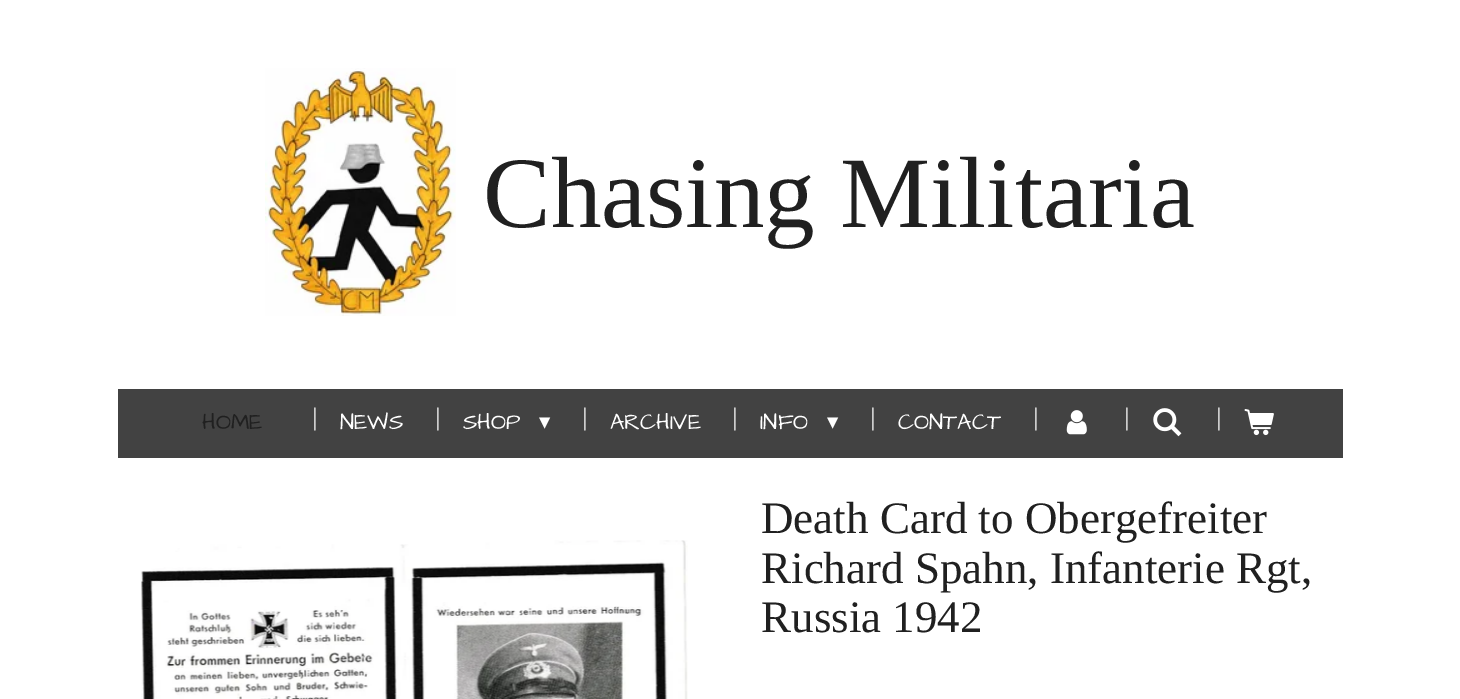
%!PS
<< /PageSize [1460 699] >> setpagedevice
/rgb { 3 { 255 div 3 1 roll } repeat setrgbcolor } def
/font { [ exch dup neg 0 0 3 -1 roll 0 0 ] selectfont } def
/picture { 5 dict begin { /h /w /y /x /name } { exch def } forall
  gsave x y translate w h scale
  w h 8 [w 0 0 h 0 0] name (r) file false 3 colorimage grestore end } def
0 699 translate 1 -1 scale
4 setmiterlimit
255 255 255 rgb
0 0 1460 699 rectfill
(img/1.rgb) 265 68 191 248 picture
66 66 66 rgb
118 389 1225 69 rectfill
(img/2.rgb) 1066 410 21 25 picture
(img/3.rgb) 1153 408 29 29 picture
(img/4.rgb) 1244 409 30 27 picture
(img/5.rgb) 141 540 547 159 picture
/LiberationSerif-Regular 101.25 font
32 32 32 rgb
483 227 moveto (Chasing Militaria) show
/ArchitectsDaughter-Regular 22.5 font
202 429 moveto (HOME) show
255 255 255 rgb
[
  [(|) 313 429]
  [(NEWS) 340 429]
  [(|) 436 429]
  [(SHOP) 463 429]
] { aload pop moveto show } forall
/DejaVuSans-Regular 22.5 font
539 429 moveto (▾) show
/ArchitectsDaughter-Regular 22.5 font
[
  [(|) 583 429]
  [(ARCHIVE) 610 429]
  [(|) 733 429]
  [(INFO) 760 429]
] { aload pop moveto show } forall
/DejaVuSans-Regular 22.5 font
827 429 moveto (▾) show
/ArchitectsDaughter-Regular 22.5 font
[
  [(|) 871 429]
  [(CONTACT) 898 429]
  [(|) 1034 429]
  [(|) 1125 429]
  [(|) 1217 429]
] { aload pop moveto show } forall
/LiberationSerif-Regular 45 font
32 32 32 rgb
[
  [(Death Card to Obergefreiter) 761 533]
  [(Richard Spahn, Infanterie Rgt,) 761 583]
  [(Russia 1942) 761 632]
] { aload pop moveto show } forall
showpage
